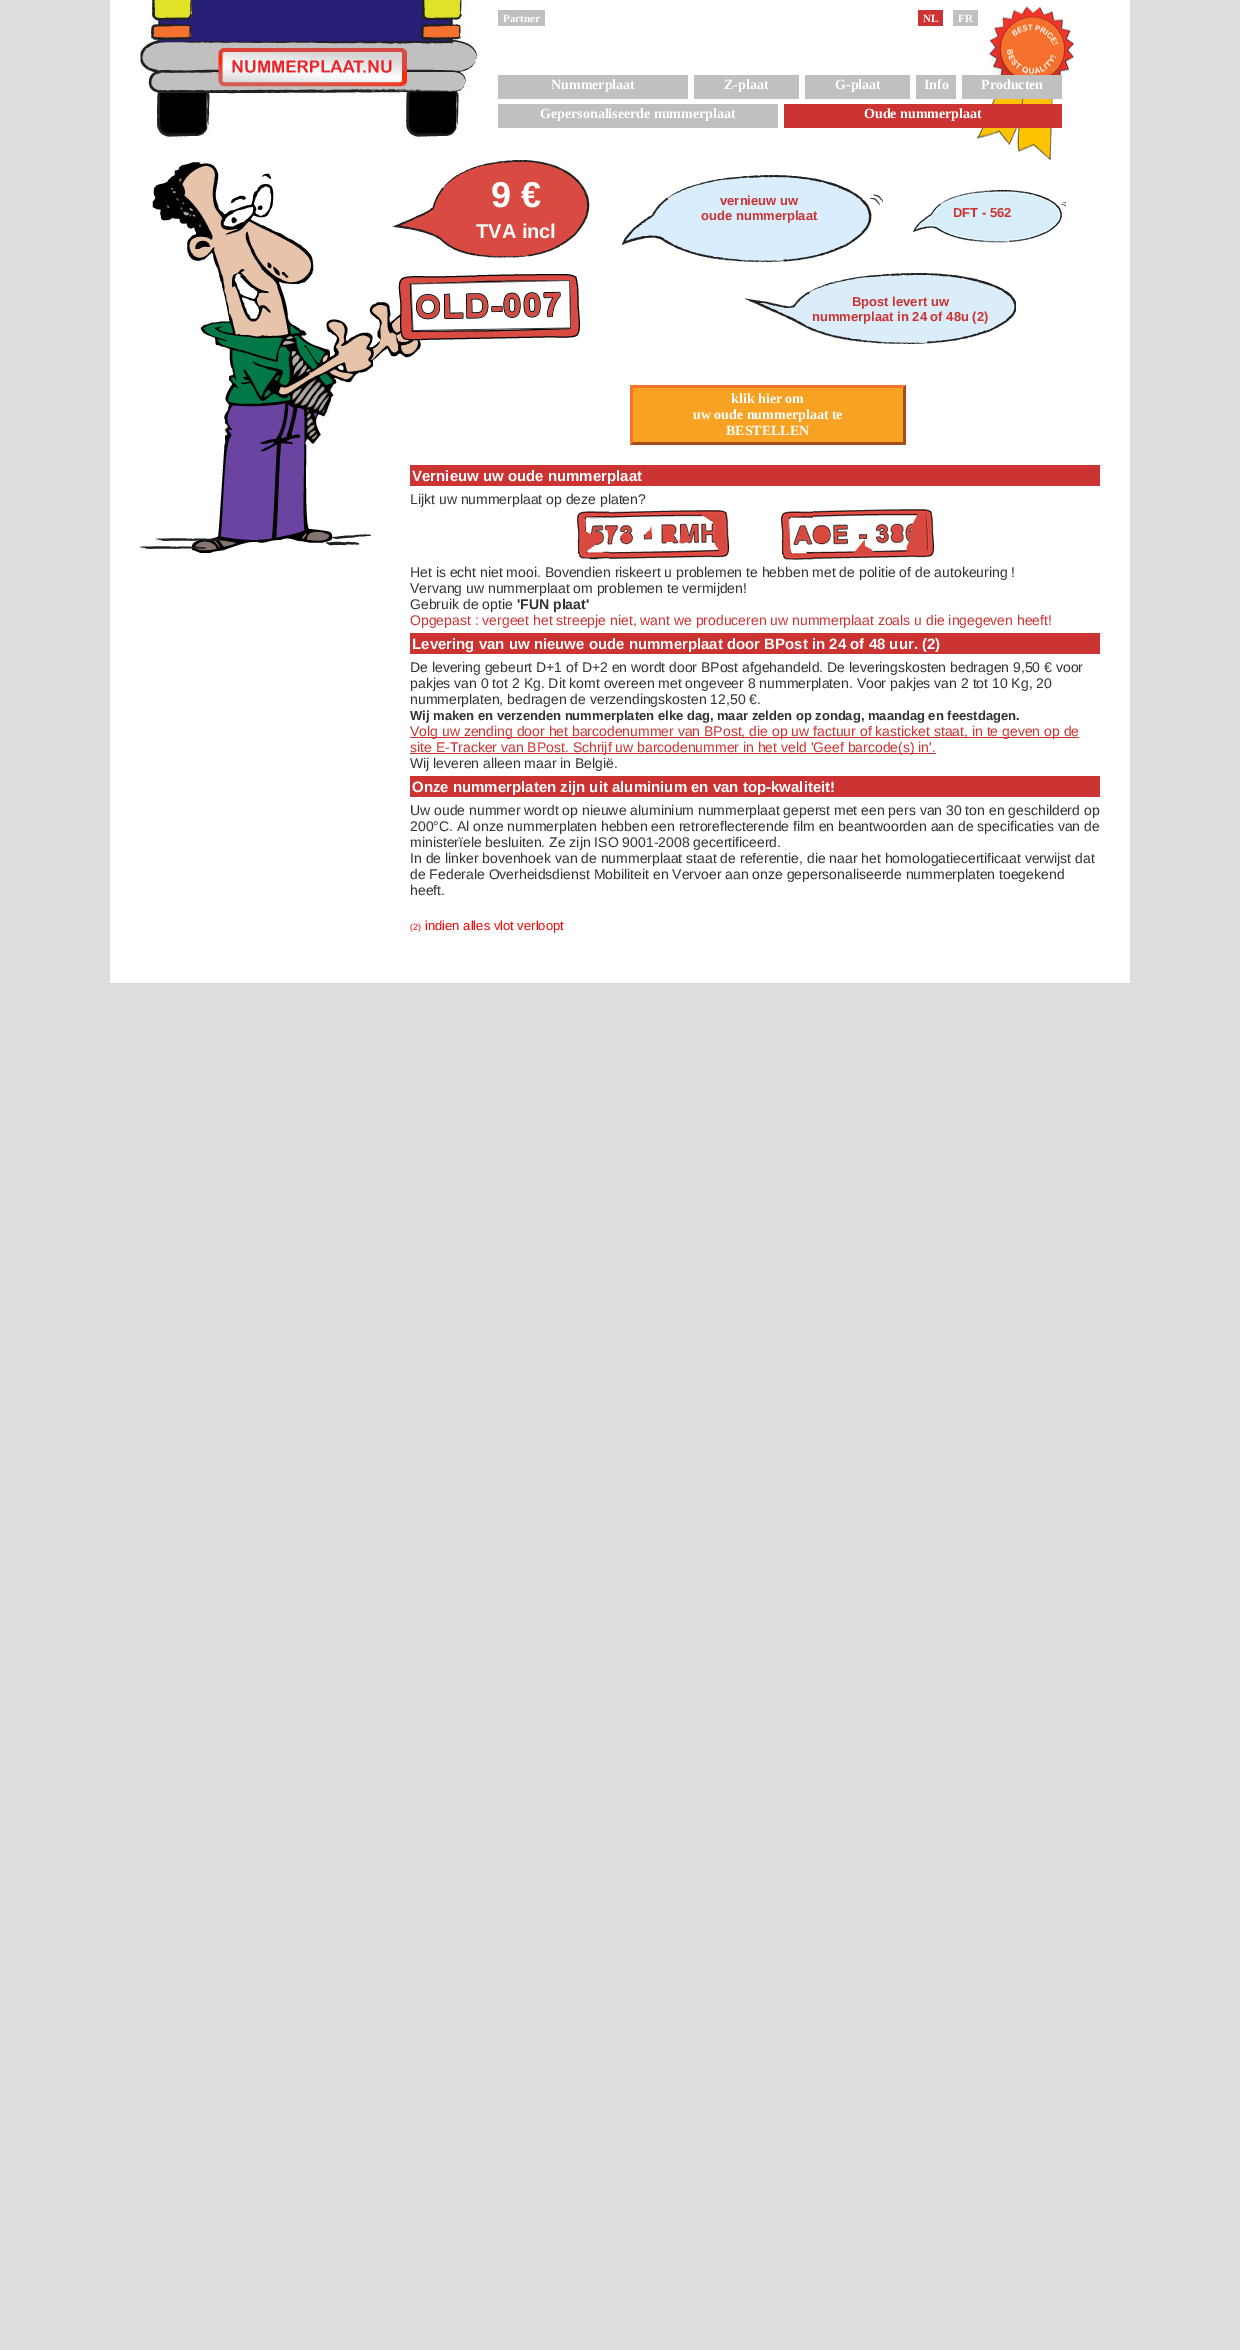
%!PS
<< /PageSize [1240 2350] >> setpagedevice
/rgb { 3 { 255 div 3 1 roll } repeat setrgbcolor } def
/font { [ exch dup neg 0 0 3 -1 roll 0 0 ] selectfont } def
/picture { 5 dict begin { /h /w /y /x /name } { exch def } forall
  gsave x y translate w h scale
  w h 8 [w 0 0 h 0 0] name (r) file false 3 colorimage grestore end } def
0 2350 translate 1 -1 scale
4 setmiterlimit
219 221 222 rgb
0 0 1240 2350 rectfill
255 255 255 rgb
110 0 1020 983 rectfill
(img/1.rgb) 140 0 338 138 picture
(img/2.rgb) 976 6 98 154 picture
[
  [498 10 47 16 192 192 192]
  [918 10 25 16 204 51 51]
  [953 10 25 16 192 192 192]
  [498 75 190 24 192 192 192]
  [694 75 105 24 192 192 192]
  [805 75 105 24 192 192 192]
  [916 75 40 24 192 192 192]
  [962 75 100 24 192 192 192]
  [498 104 280 24 192 192 192]
  [784 104 278 24 204 51 51]
] { aload pop rgb rectfill } forall
(img/3.rgb) 140 160 450 393 picture
(img/4.rgb) 622 175 261 87 picture
(img/5.rgb) 913 190 153 53 picture
(img/6.rgb) 745 273 271 71 picture
248 162 35 rgb
630 385 276 60 rectfill
245 115 44 rgb
630 385 moveto 906 385 lineto 903 388 lineto 633 388 lineto closepath fill
163 77 29 rgb
906 385 moveto 906 445 lineto 903 442 lineto 903 388 lineto closepath fill
906 445 moveto 630 445 lineto 633 442 lineto 903 442 lineto closepath fill
245 115 44 rgb
630 445 moveto 630 385 lineto 633 388 lineto 633 442 lineto closepath fill
204 51 51 rgb
410 465 690 21 rectfill
(img/7.rgb) 576 510 153 50 picture
(img/8.rgb) 780 509 154 51 picture
[
  [410 633 690 21 204 51 51]
  [410 737 669 1 204 51 51]
  [410 753 526 1 204 51 51]
  [410 776 690 21 204 51 51]
] { aload pop rgb rectfill } forall
/LiberationSerif-Bold 11 font
255 255 255 rgb
[
  [(Partner) 503 22]
  [(NL) 923 22]
  [(FR) 958 22]
] { aload pop moveto show } forall
/LiberationSerif-Bold 14 font
[
  [(Nummerplaat) 551 89]
  [(Z-plaat) 724 89]
  [(G-plaat) 835 89]
  [(Info) 924 89]
  [(Producten) 981 89]
  [(Gepersonaliseerde nummerplaat) 540 118]
  [(Oude nummerplaat) 864 118]
] { aload pop moveto show } forall
/LiberationSans-Bold 36 font
491 207 moveto (9 €) show
/LiberationSans-Bold 20 font
476 238 moveto (TVA incl) show
/LiberationSans-Bold 13 font
204 51 51 rgb
[
  [(vernieuw uw) 720 205]
  [(oude nummerplaat) 701 220]
  [(DFT - 562) 953 217]
  [(Bpost levert uw) 852 306]
  [(nummerplaat in 24 of 48u \(2\)) 812 321]
] { aload pop moveto show } forall
/LiberationSerif-Bold 14 font
255 255 255 rgb
[
  [(klik hier om) 731 403]
  [(uw oude nummerplaat te) 693 419]
  [(BESTELLEN) 726 435]
] { aload pop moveto show } forall
/LiberationSans-Bold 15 font
412 481 moveto (Vernieuw uw oude nummerplaat) show
/LiberationSans-Regular 14 font
51 51 51 rgb
[
  [(Lijkt uw nummerplaat op deze platen?) 410 504]
  [(Het is echt niet mooi. Bovendien riskeert u problemen te hebben met de politie of de autokeuring !) 410 577]
  [(Vervang uw nummerplaat om problemen te vermijden!) 410 593]
  [(Gebruik de optie) 410 609]
] { aload pop moveto show } forall
/LiberationSans-Bold 14 font
517 609 moveto ('FUN plaat') show
/LiberationSans-Regular 14 font
204 51 51 rgb
410 625 moveto (Opgepast : vergeet het streepje niet, want we produceren uw nummerplaat zoals u die ingegeven heeft!) show
/LiberationSans-Bold 15 font
255 255 255 rgb
412 649 moveto (Levering van uw nieuwe oude nummerplaat door BPost in 24 of 48 uur. \(2\)) show
/LiberationSans-Regular 14 font
51 51 51 rgb
[
  [(De levering gebeurt D+1 of D+2 en wordt door BPost afgehandeld. De leveringskosten bedragen 9,50 € voor) 410 672]
  [(pakjes van 0 tot 2 Kg. Dit komt overeen met ongeveer 8 nummerplaten. Voor pakjes van 2 tot 10 Kg, 20) 410 688]
  [(nummerplaten, bedragen de verzendingskosten 12,50 €.) 410 704]
] { aload pop moveto show } forall
/LiberationSans-Bold 13 font
410 720 moveto (Wij maken en verzenden nummerplaten elke dag, maar zelden op zondag, maandag en feestdagen.) show
/LiberationSans-Regular 14 font
204 51 51 rgb
410 736 moveto (Volg uw zending door het barcodenummer van BPost, die op uw factuur of kasticket staat, in te geven op de) show
410 752 moveto (site E-Tracker van BPost. Schrijf uw barcodenummer in het veld 'Geef barcode\(s\) in'.) show
51 51 51 rgb
410 768 moveto (Wij leveren alleen maar in België.) show
/LiberationSans-Bold 15 font
255 255 255 rgb
412 792 moveto (Onze nummerplaten zijn uit aluminium en van top-kwaliteit!) show
/LiberationSans-Regular 14 font
51 51 51 rgb
[
  [(Uw oude nummer wordt op nieuwe aluminium nummerplaat geperst met een pers van 30 ton en geschilderd op) 410 815]
  [(200°C. Al onze nummerplaten hebben een retroreflecterende film en beantwoorden aan de specificaties van de) 410 831]
  [(ministerïele besluiten. Ze zijn ISO 9001-2008 gecertificeerd.) 410 847]
  [(In de linker bovenhoek van de nummerplaat staat de referentie, die naar het homologatiecertificaat verwijst dat) 410 863]
  [(de Federale Overheidsdienst Mobiliteit en Vervoer aan onze gepersonaliseerde nummerplaten toegekend) 410 879]
  [(heeft.) 410 895]
] { aload pop moveto show } forall
/LiberationSans-Regular 9 font
255 0 0 rgb
410 930 moveto (\(2\)) show
/LiberationSans-Regular 13 font
425 930 moveto (indien alles vlot verloopt) show
showpage
